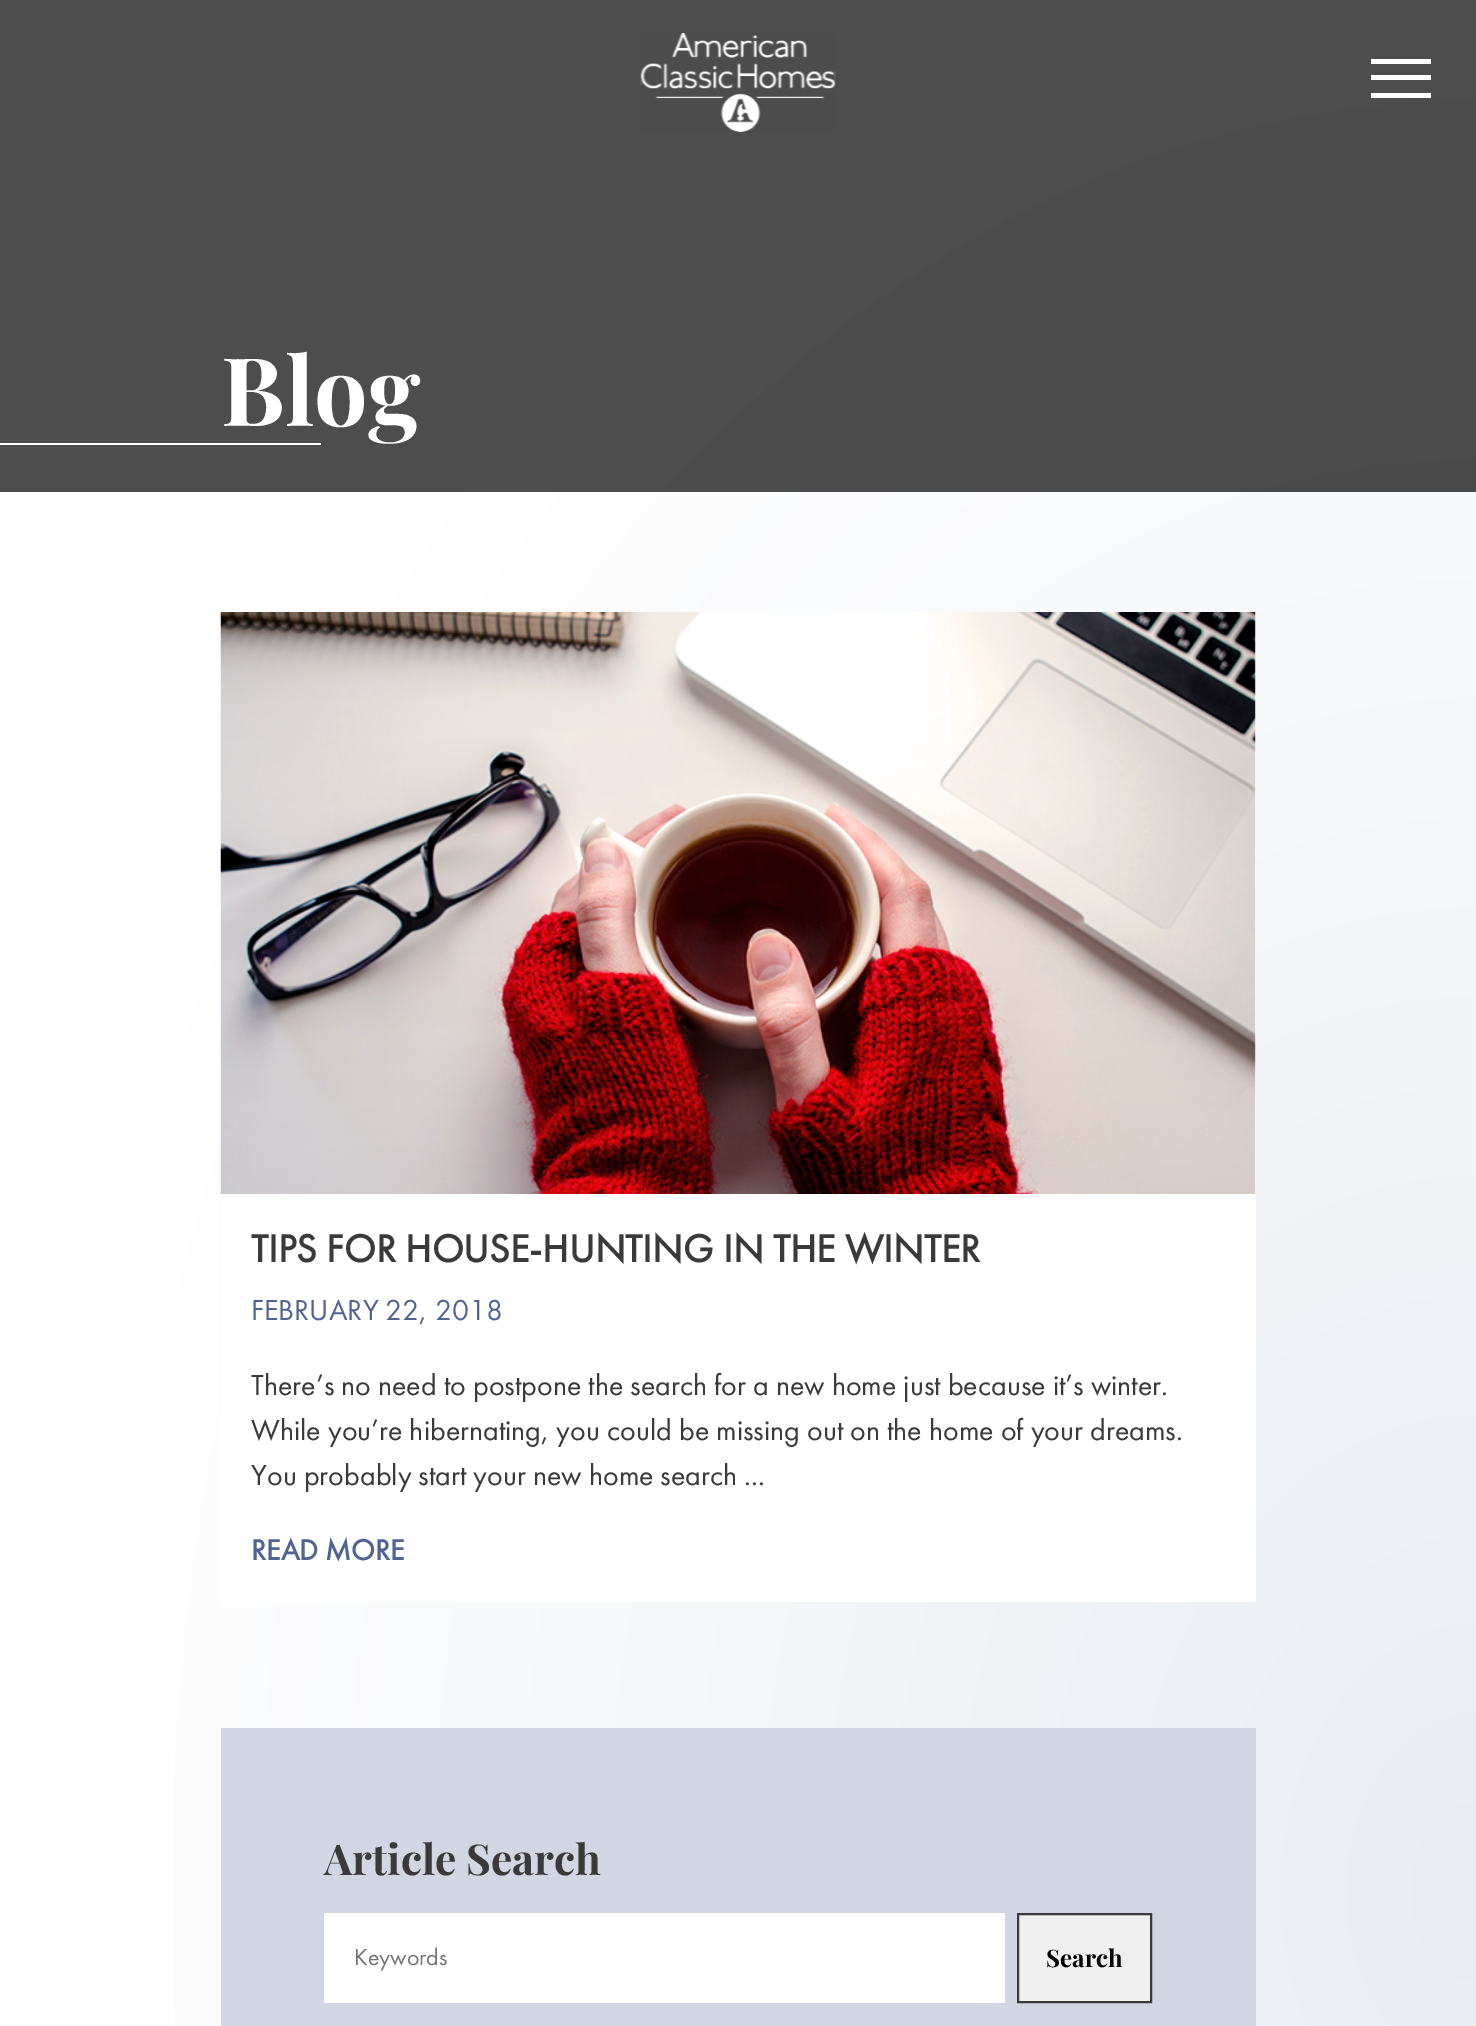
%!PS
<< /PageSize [1476 2026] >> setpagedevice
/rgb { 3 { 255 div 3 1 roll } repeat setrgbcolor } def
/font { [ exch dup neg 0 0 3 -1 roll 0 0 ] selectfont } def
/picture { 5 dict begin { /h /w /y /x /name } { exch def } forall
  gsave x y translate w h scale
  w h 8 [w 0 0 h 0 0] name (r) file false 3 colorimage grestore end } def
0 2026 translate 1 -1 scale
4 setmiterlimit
255 255 255 rgb
0 0 1476 2026 rectfill
gsave 174 492 moveto 1476 492 lineto 1476 2026 lineto 174 2026 lineto closepath clip newpath 1476 1892 translate 2087 2866 scale
<< /ShadingType 3 /ColorSpace /DeviceRGB /Coords [0 0 0 0 0 1] /Extend [true true] /Function << /FunctionType 3 /Domain [0 1] /Functions [<< /FunctionType 2 /Domain [0 1] /C0 [0.914 0.929 0.953] /C1 [1 1 1] /N 1 >> << /FunctionType 2 /Domain [0 1] /C0 [1 1 1] /C1 [1 1 1] /N 1 >>] /Bounds [0.7] /Encode [0 1 0 1] >> >> shfill grestore
gsave 0 0 moveto 1476 0 lineto 1476 492 lineto 0 492 lineto closepath clip newpath 1476 1892 translate 2087 2866 scale
<< /ShadingType 3 /ColorSpace /DeviceRGB /Coords [0 0 0 0 0 1] /Extend [true true] /Function << /FunctionType 3 /Domain [0 1] /Functions [<< /FunctionType 2 /Domain [0 1] /C0 [0.275 0.278 0.286] /C1 [0.302 0.302 0.302] /N 1 >> << /FunctionType 2 /Domain [0 1] /C0 [0.302 0.302 0.302] /C1 [0.302 0.302 0.302] /N 1 >>] /Bounds [0.7] /Encode [0 1 0 1] >> >> shfill grestore
(img/1.rgb) 640 33 196 99 picture
[
  [1371 59 60 5 255 255 255]
  [1371 75 60 5 255 255 255]
  [1371 93 60 5 255 255 255]
  [0 443 321 2 255 255 255]
  [221 612 1035 990 255 255 255]
] { aload pop rgb rectfill } forall
(img/2.rgb) 220 612 1036 582 picture
209 214 226 rgb
221 1728 1035 298 rectfill
255 255 255 rgb
324 1913 681 90 rectfill
239 239 239 rgb
1018 1914 moveto 1151 1914 lineto 1151 2002 lineto 1018 2002 lineto closepath gsave fill grestore
58 58 58 rgb
2 setlinewidth
stroke
/PlayfairDisplay-Bold 95 font
255 255 255 rgb
221 426 moveto (Blog) show
/FuturaPT-Bold 40.1 font
58 58 58 rgb
251 1262 moveto (TIPS FOR HOUSE-HUNTING IN THE WINTER) show
/FuturaPT-Regular 30 font
80 100 146 rgb
251 1320 moveto (FEBRUARY 22, 2018) show
58 58 58 rgb
[
  [(There’s no need to postpone the search for a new home just because it’s winter.) 251 1395]
  [(While you’re hibernating, you could be missing out on the home of your dreams.) 251 1440]
  [(You probably start your new home search ...) 251 1485]
] { aload pop moveto show } forall
/FuturaPT-Bold 30 font
80 100 146 rgb
251 1560 moveto (READ MORE) show
/PlayfairDisplay-Bold 42.5 font
58 58 58 rgb
324 1875 moveto (Article Search) show
/FuturaPT-Regular 24 font
117 117 117 rgb
354 1965 moveto (Keywords) show
/PlayfairDisplay-Bold 24 font
0 0 0 rgb
1046 1967 moveto (Search) show
showpage
